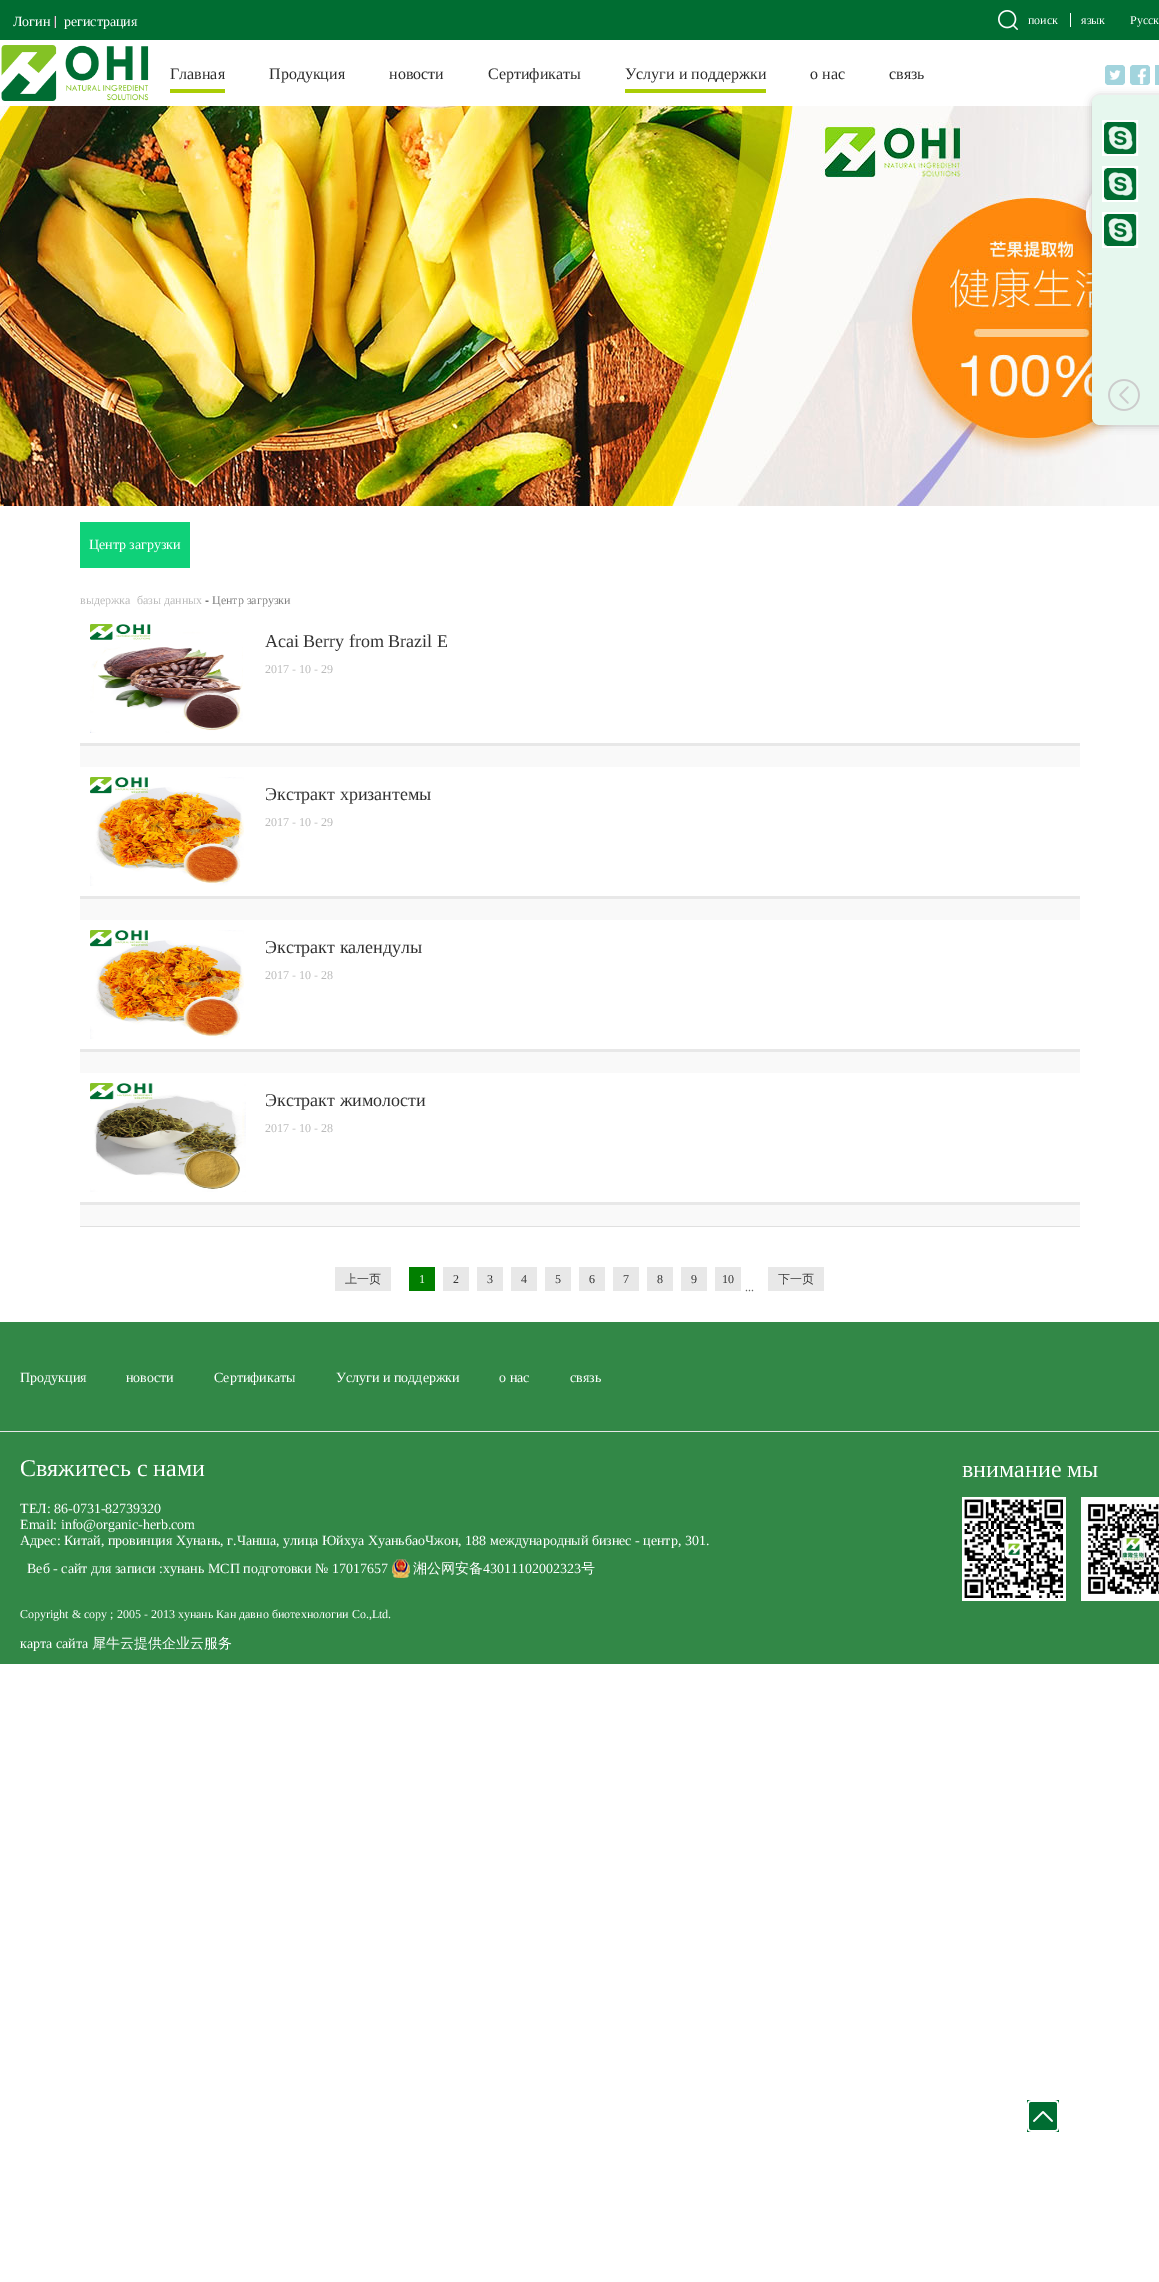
%!PS
<< /PageSize [1159 2282] /PageUsesTransparency true >> setpagedevice
/rgb { 3 { 255 div 3 1 roll } repeat setrgbcolor } def
/font { [ exch dup neg 0 0 3 -1 roll 0 0 ] selectfont } def
/alpha { dup .setfillconstantalpha .setstrokeconstantalpha } def
/roundrect { 5 dict begin { /r /h /w /y /x } { exch def } forall
  x r add y moveto x w add y 2 copy h add r arct x w add y h add x 1 index r arct
  x y h add x y r arct x y 2 copy exch w add exch r arct closepath end } def
/shadow { 12 dict begin { /a /b /q /h /w /y /x } { exch def } forall gsave /was 0 def
  9 -2 -9 { dup b mul 4 div /e exch def 1 sub .425 mul 2.718 exch exp 1 add a .99 .min exch div /now exch def
    1 1 now sub 1 was sub div sub alpha /was now def
    w h .min e 2 mul add 0 gt { x e sub y e sub w e 2 mul add h e 2 mul add
      q e add b .6 mul add w h .min 2 div e add .min 0 .max roundrect fill } if } for grestore end } def
/picture { 5 dict begin { /h /w /y /x /name } { exch def } forall
  gsave x y translate w h scale
  w h 8 [w 0 0 h 0 0] name (r) file false 3 colorimage grestore end } def
0 .pushpdf14devicefilter
0 2282 translate 1 -1 scale
4 setmiterlimit
255 255 255 rgb
0 0 1159 2282 rectfill
0 109 50 rgb
0 0 1159 40 rectfill
(img/1.rgb) 54 16 2 12 picture
(img/2.rgb) 998 10 20 20 picture
255 255 255 rgb
1070 13 1 14 rectfill
(img/3.rgb) 1 45 148 56 picture
170 205 5 rgb
170 89 55 4 rectfill
625 89 141 4 rectfill
(img/4.rgb) 1105 65 20 20 picture
(img/5.rgb) 1130 65 20 20 picture
162 212 221 rgb
1155 65 4 20 rectfill
(img/6.rgb) 0 106 1159 400 picture
[
  [80 522 110 46 15 209 121]
  [80 746 1000 480 249 249 249]
  [80 743 1000 3 232 232 232]
] { aload pop rgb rectfill } forall
(img/7.rgb) 90 624 153 109 picture
255 255 255 rgb
80 767 1000 129 rectfill
232 232 232 rgb
80 896 1000 3 rectfill
(img/8.rgb) 90 777 154 109 picture
255 255 255 rgb
80 920 1000 129 rectfill
232 232 232 rgb
80 1049 1000 3 rectfill
(img/8.rgb) 90 930 154 109 picture
255 255 255 rgb
80 1073 1000 129 rectfill
232 232 232 rgb
80 1202 1000 3 rectfill
(img/9.rgb) 90 1083 156 109 picture
[
  [80 1226 1000 1 224 224 224]
  [335 1267 56 24 232 232 232]
  [409 1267 26 24 1 127 0]
  [443 1267 26 24 232 232 232]
  [477 1267 26 24 232 232 232]
  [511 1267 26 24 232 232 232]
  [545 1267 26 24 232 232 232]
  [579 1267 26 24 232 232 232]
  [613 1267 26 24 232 232 232]
  [647 1267 26 24 232 232 232]
  [681 1267 26 24 232 232 232]
  [715 1267 26 24 232 232 232]
  [768 1267 56 24 232 232 232]
] { aload pop rgb rectfill } forall
0 0 0 rgb
1092 96 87 330 8 4 0.24 shadow
230 247 238 rgb
1092 95 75 330 8 roundrect fill
(img/10.rgb) 1102 120 37 36 picture
(img/10.rgb) 1102 166 37 36 picture
(img/10.rgb) 1102 212 37 36 picture
(img/11.rgb) 1108 379 32 32 picture
50 136 71 rgb
0 1322 1159 342 rectfill
231 231 231 rgb
0 1431 1159 1 rectfill
(img/12.rgb) 392 1559 18 19 picture
(img/13.rgb) 962 1497 104 104 picture
(img/14.rgb) 1081 1497 78 104 picture
0 109 50 rgb
1027 2100 32 32 rectfill
(img/15.rgb) 1027 2100 32 32 picture
/LiberationSerif-Regular 14 font
255 255 255 rgb
13 26 moveto (Логин) show
64 26 moveto (регистрация) show
/LiberationSerif-Regular 12 font
[
  [(поиск) 1028 24]
  [(язык) 1081 24]
  [(Русск) 1130 24]
] { aload pop moveto show } forall
/LiberationSerif-Regular 16 font
45 45 45 rgb
[
  [(Главная) 170 79]
  [(Продукция) 269 79]
  [(новости) 389 79]
  [(Сертификаты) 488 79]
  [(Услуги и поддержки) 625 79]
  [(о нас) 810 79]
  [(связь) 889 79]
] { aload pop moveto show } forall
/LiberationSerif-Regular 14 font
255 255 255 rgb
89 549 moveto (Центр загрузки) show
/LiberationSerif-Regular 12 font
186 186 186 rgb
80 604 moveto (выдержка  базы данных) show
0 0 0 rgb
205 604 moveto (-) show
128 128 128 rgb
212 604 moveto (Центр загрузки) show
/LiberationSerif-Regular 18 font
51 51 51 rgb
265 647 moveto (Acai Berry from Brazil E) show
/LiberationSerif-Regular 12 font
186 186 186 rgb
265 673 moveto (2017 - 10 - 29) show
/LiberationSerif-Regular 18 font
51 51 51 rgb
265 800 moveto (Экстракт хризантемы) show
/LiberationSerif-Regular 12 font
186 186 186 rgb
265 826 moveto (2017 - 10 - 29) show
/LiberationSerif-Regular 18 font
51 51 51 rgb
265 953 moveto (Экстракт календулы) show
/LiberationSerif-Regular 12 font
186 186 186 rgb
265 979 moveto (2017 - 10 - 28) show
/LiberationSerif-Regular 18 font
51 51 51 rgb
265 1106 moveto (Экстракт жимолости) show
/LiberationSerif-Regular 12 font
186 186 186 rgb
265 1132 moveto (2017 - 10 - 28) show
/WenQuanYiZenHei-Medium 12 font
51 51 51 rgb
345 1283 moveto (上一页) show
/LiberationSerif-Regular 12 font
255 255 255 rgb
419 1283 moveto (1) show
51 51 51 rgb
[
  [(2) 453 1283]
  [(3) 487 1283]
  [(4) 521 1283]
  [(5) 555 1283]
  [(6) 589 1283]
  [(7) 623 1283]
  [(8) 657 1283]
  [(9) 691 1283]
  [(10) 722 1283]
] { aload pop moveto show } forall
/WenQuanYiZenHei-Medium 12 font
778 1283 moveto (下一页) show
/LiberationSerif-Regular 12 font
102 102 102 rgb
745 1291 moveto (...) show
/LiberationSerif-Regular 14 font
255 255 255 rgb
[
  [(Продукция) 20 1382]
  [(новости) 126 1382]
  [(Сертификаты) 214 1382]
  [(Услуги и поддержки) 336 1382]
  [(о нас) 499 1382]
  [(связь) 570 1382]
] { aload pop moveto show } forall
/LiberationSerif-Regular 24 font
20 1476 moveto (Свяжитесь с нами) show
/LiberationSerif-Regular 14 font
[
  [(ТЕЛ: 86-0731-82739320) 20 1513]
  [(Email: info@organic-herb.com) 20 1529]
  [(Адрес: Китай, провинция Хунань, г.Чанша, улица Юйхуа ХуаньбаоЧжон, 188 международный бизнес - центр, 301.) 20 1545]
  [(Веб - сайт для записи :хунань МСП подготовки № 17017657) 27 1573]
] { aload pop moveto show } forall
/WenQuanYiZenHei-Medium 14 font
413 1573 moveto (湘公网安备) show
/LiberationSerif-Regular 14 font
483 1573 moveto (43011102002323) show
/WenQuanYiZenHei-Medium 14 font
581 1573 moveto (号) show
/LiberationSerif-Regular 24 font
962 1477 moveto (внимание мы) show
/LiberationSerif-Regular 12 font
20 1618 moveto (Copyright & copy ; 2005 - 2013 хунань Кан давно биотехнологии Co.,Ltd.) show
/LiberationSerif-Regular 14 font
20 1648 moveto (карта сайта) show
/WenQuanYiZenHei-Medium 14 font
92 1648 moveto (犀牛云提供企业云服务) show
.poppdf14devicefilter showpage
